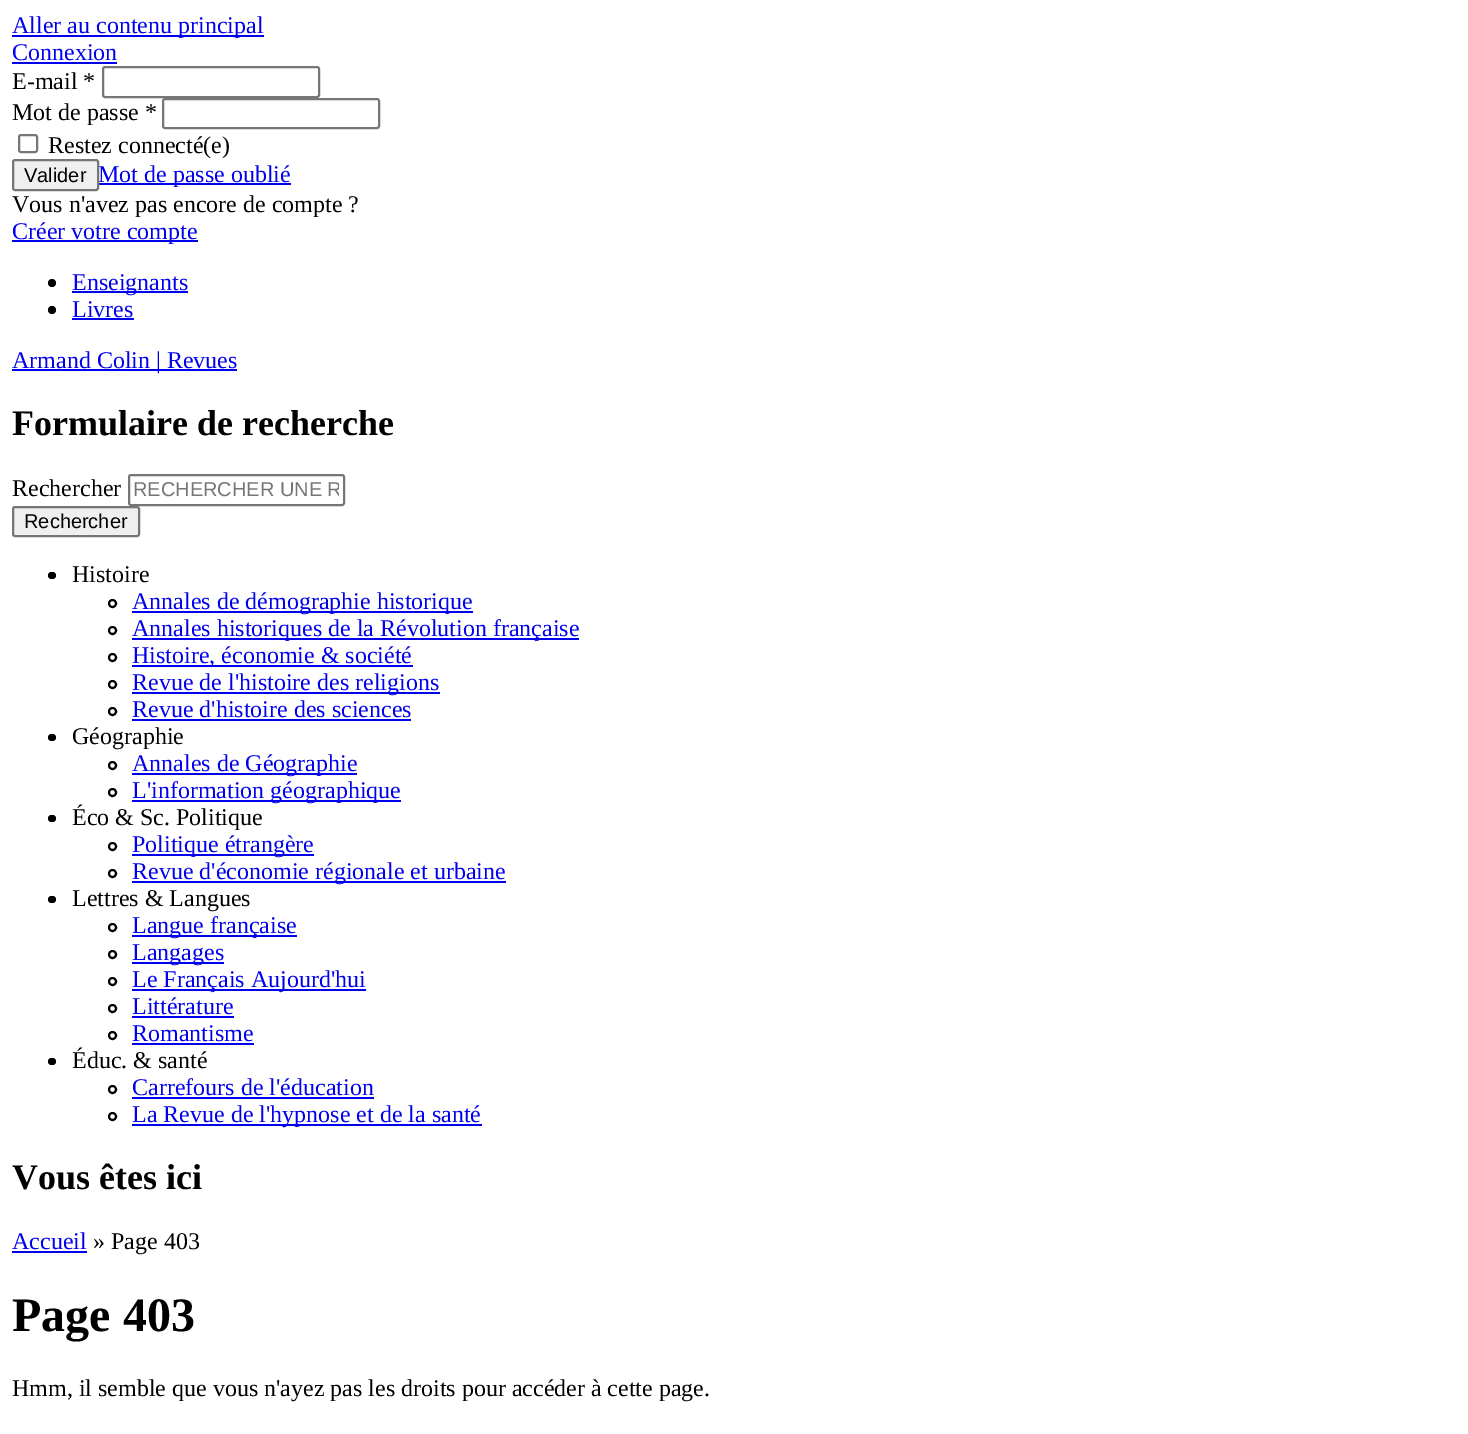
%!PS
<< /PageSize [1468 1434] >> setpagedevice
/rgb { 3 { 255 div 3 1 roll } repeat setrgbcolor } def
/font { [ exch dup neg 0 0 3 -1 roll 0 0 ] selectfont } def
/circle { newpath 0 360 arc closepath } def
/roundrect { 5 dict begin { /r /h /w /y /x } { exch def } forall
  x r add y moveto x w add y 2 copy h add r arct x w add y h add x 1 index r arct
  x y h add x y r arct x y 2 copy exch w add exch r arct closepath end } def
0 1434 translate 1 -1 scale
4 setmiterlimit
255 255 255 rgb
0 0 1468 1434 rectfill
0 0 238 rgb
12 35 252 2 rectfill
12 62 105 2 rectfill
118 118 118 rgb
2 setlinewidth
103 67 216 30 2 roundrect stroke
163 99 216 29 2 roundrect stroke
19 135 18 17 2 roundrect stroke
0 0 238 rgb
99 183 192 2 rectfill
12 240 186 2 rectfill
0 0 0 rgb
52 283 4 circle fill
0 0 238 rgb
72 291 116 2 rectfill
0 0 0 rgb
52 310 4 circle fill
0 0 238 rgb
72 318 62 2 rectfill
12 369 225 2 rectfill
118 118 118 rgb
129 475 215 30 2 roundrect stroke
239 239 239 rgb
13 507 126 29 2 roundrect gsave fill grestore
118 118 118 rgb
stroke
0 0 0 rgb
48 572 8 7 3.5 roundrect fill
112.5 603.5 3.5 circle stroke
0 0 238 rgb
132 611 341 2 rectfill
0 0 0 rgb
112.5 630.5 3.5 circle stroke
0 0 238 rgb
132 638 447 2 rectfill
0 0 0 rgb
112.5 657.5 3.5 circle stroke
0 0 238 rgb
132 665 281 2 rectfill
0 0 0 rgb
112.5 684.5 3.5 circle stroke
0 0 238 rgb
132 692 308 2 rectfill
0 0 0 rgb
112.5 711.5 3.5 circle stroke
0 0 238 rgb
132 719 279 2 rectfill
0 0 0 rgb
48 734 8 7 3.5 roundrect fill
112.5 765.5 3.5 circle stroke
0 0 238 rgb
132 773 225 2 rectfill
0 0 0 rgb
112.5 792.5 3.5 circle stroke
0 0 238 rgb
132 800 269 2 rectfill
0 0 0 rgb
48 815 8 7 3.5 roundrect fill
112.5 846.5 3.5 circle stroke
0 0 238 rgb
132 854 182 2 rectfill
0 0 0 rgb
112.5 873.5 3.5 circle stroke
0 0 238 rgb
132 881 374 2 rectfill
0 0 0 rgb
48 896 8 7 3.5 roundrect fill
112.5 927.5 3.5 circle stroke
0 0 238 rgb
132 935 165 2 rectfill
0 0 0 rgb
112.5 954.5 3.5 circle stroke
0 0 238 rgb
132 962 92 2 rectfill
0 0 0 rgb
112.5 981.5 3.5 circle stroke
0 0 238 rgb
132 989 234 2 rectfill
0 0 0 rgb
112.5 1008.5 3.5 circle stroke
0 0 238 rgb
132 1016 102 2 rectfill
0 0 0 rgb
112.5 1035.5 3.5 circle stroke
0 0 238 rgb
132 1043 122 2 rectfill
0 0 0 rgb
48 1058 8 7 3.5 roundrect fill
112.5 1089.5 3.5 circle stroke
0 0 238 rgb
132 1097 242 2 rectfill
0 0 0 rgb
112.5 1116.5 3.5 circle stroke
0 0 238 rgb
132 1124 350 2 rectfill
12 1251 75 2 rectfill
/LiberationSerif-Regular 24 font
12 33 moveto (Aller au contenu principal) show
12 60 moveto (Connexion) show
0 0 0 rgb
[
  [(E-mail *) 12 89]
  [(Mot de passe *) 12 120]
  [(Restez connecté\(e\)) 48 153]
] { aload pop moveto show } forall
0 0 238 rgb
98 182 moveto (Mot de passe oublié) show
239 239 239 rgb
13 160 85 30 2 roundrect gsave fill grestore
118 118 118 rgb
stroke
/LiberationSans-Regular 20 font
0 0 0 rgb
24 182 moveto (Valider) show
/LiberationSerif-Regular 24 font
12 212 moveto (Vous n'avez pas encore de compte ?) show
0 0 238 rgb
[
  [(Créer votre compte) 12 239]
  [(Enseignants) 72 290]
  [(Livres) 72 317]
  [(Armand Colin | Revues) 12 368]
] { aload pop moveto show } forall
/LiberationSerif-Bold 36 font
0 0 0 rgb
12 435 moveto (Formulaire de recherche) show
/LiberationSerif-Regular 24 font
12 496 moveto (Rechercher) show
gsave
134 479 205 22 rectclip
/LiberationSans-Regular 20 font
117 117 117 rgb
133 496 moveto (RECHERCHER UNE R) show
grestore
/LiberationSans-Regular 20 font
24 528 moveto (Rechercher) show
/LiberationSerif-Regular 24 font
72 582 moveto (Histoire) show
0 0 238 rgb
[
  [(Annales de démographie historique) 132 609]
  [(Annales historiques de la Révolution française) 132 636]
  [(Histoire, économie & société) 132 663]
  [(Revue de l'histoire des religions) 132 690]
  [(Revue d'histoire des sciences) 132 717]
] { aload pop moveto show } forall
0 0 0 rgb
72 744 moveto (Géographie) show
0 0 238 rgb
132 771 moveto (Annales de Géographie) show
132 798 moveto (L'information géographique) show
0 0 0 rgb
72 825 moveto (Éco & Sc. Politique) show
0 0 238 rgb
132 852 moveto (Politique étrangère) show
132 879 moveto (Revue d'économie régionale et urbaine) show
0 0 0 rgb
72 906 moveto (Lettres & Langues) show
0 0 238 rgb
[
  [(Langue française) 132 933]
  [(Langages) 132 960]
  [(Le Français Aujourd'hui) 132 987]
  [(Littérature) 132 1014]
  [(Romantisme) 132 1041]
] { aload pop moveto show } forall
0 0 0 rgb
72 1068 moveto (Éduc. & santé) show
0 0 238 rgb
132 1095 moveto (Carrefours de l'éducation) show
132 1122 moveto (La Revue de l'hypnose et de la santé) show
/LiberationSerif-Bold 36 font
0 0 0 rgb
12 1189 moveto (Vous êtes ici) show
/LiberationSerif-Regular 24 font
0 0 238 rgb
12 1249 moveto (Accueil) show
0 0 0 rgb
93 1249 moveto (» Page 403) show
/LiberationSerif-Bold 48 font
12 1331 moveto (Page 403) show
/LiberationSerif-Regular 24 font
12 1396 moveto (Hmm, il semble que vous n'ayez pas les droits pour accéder à cette page.) show
showpage
